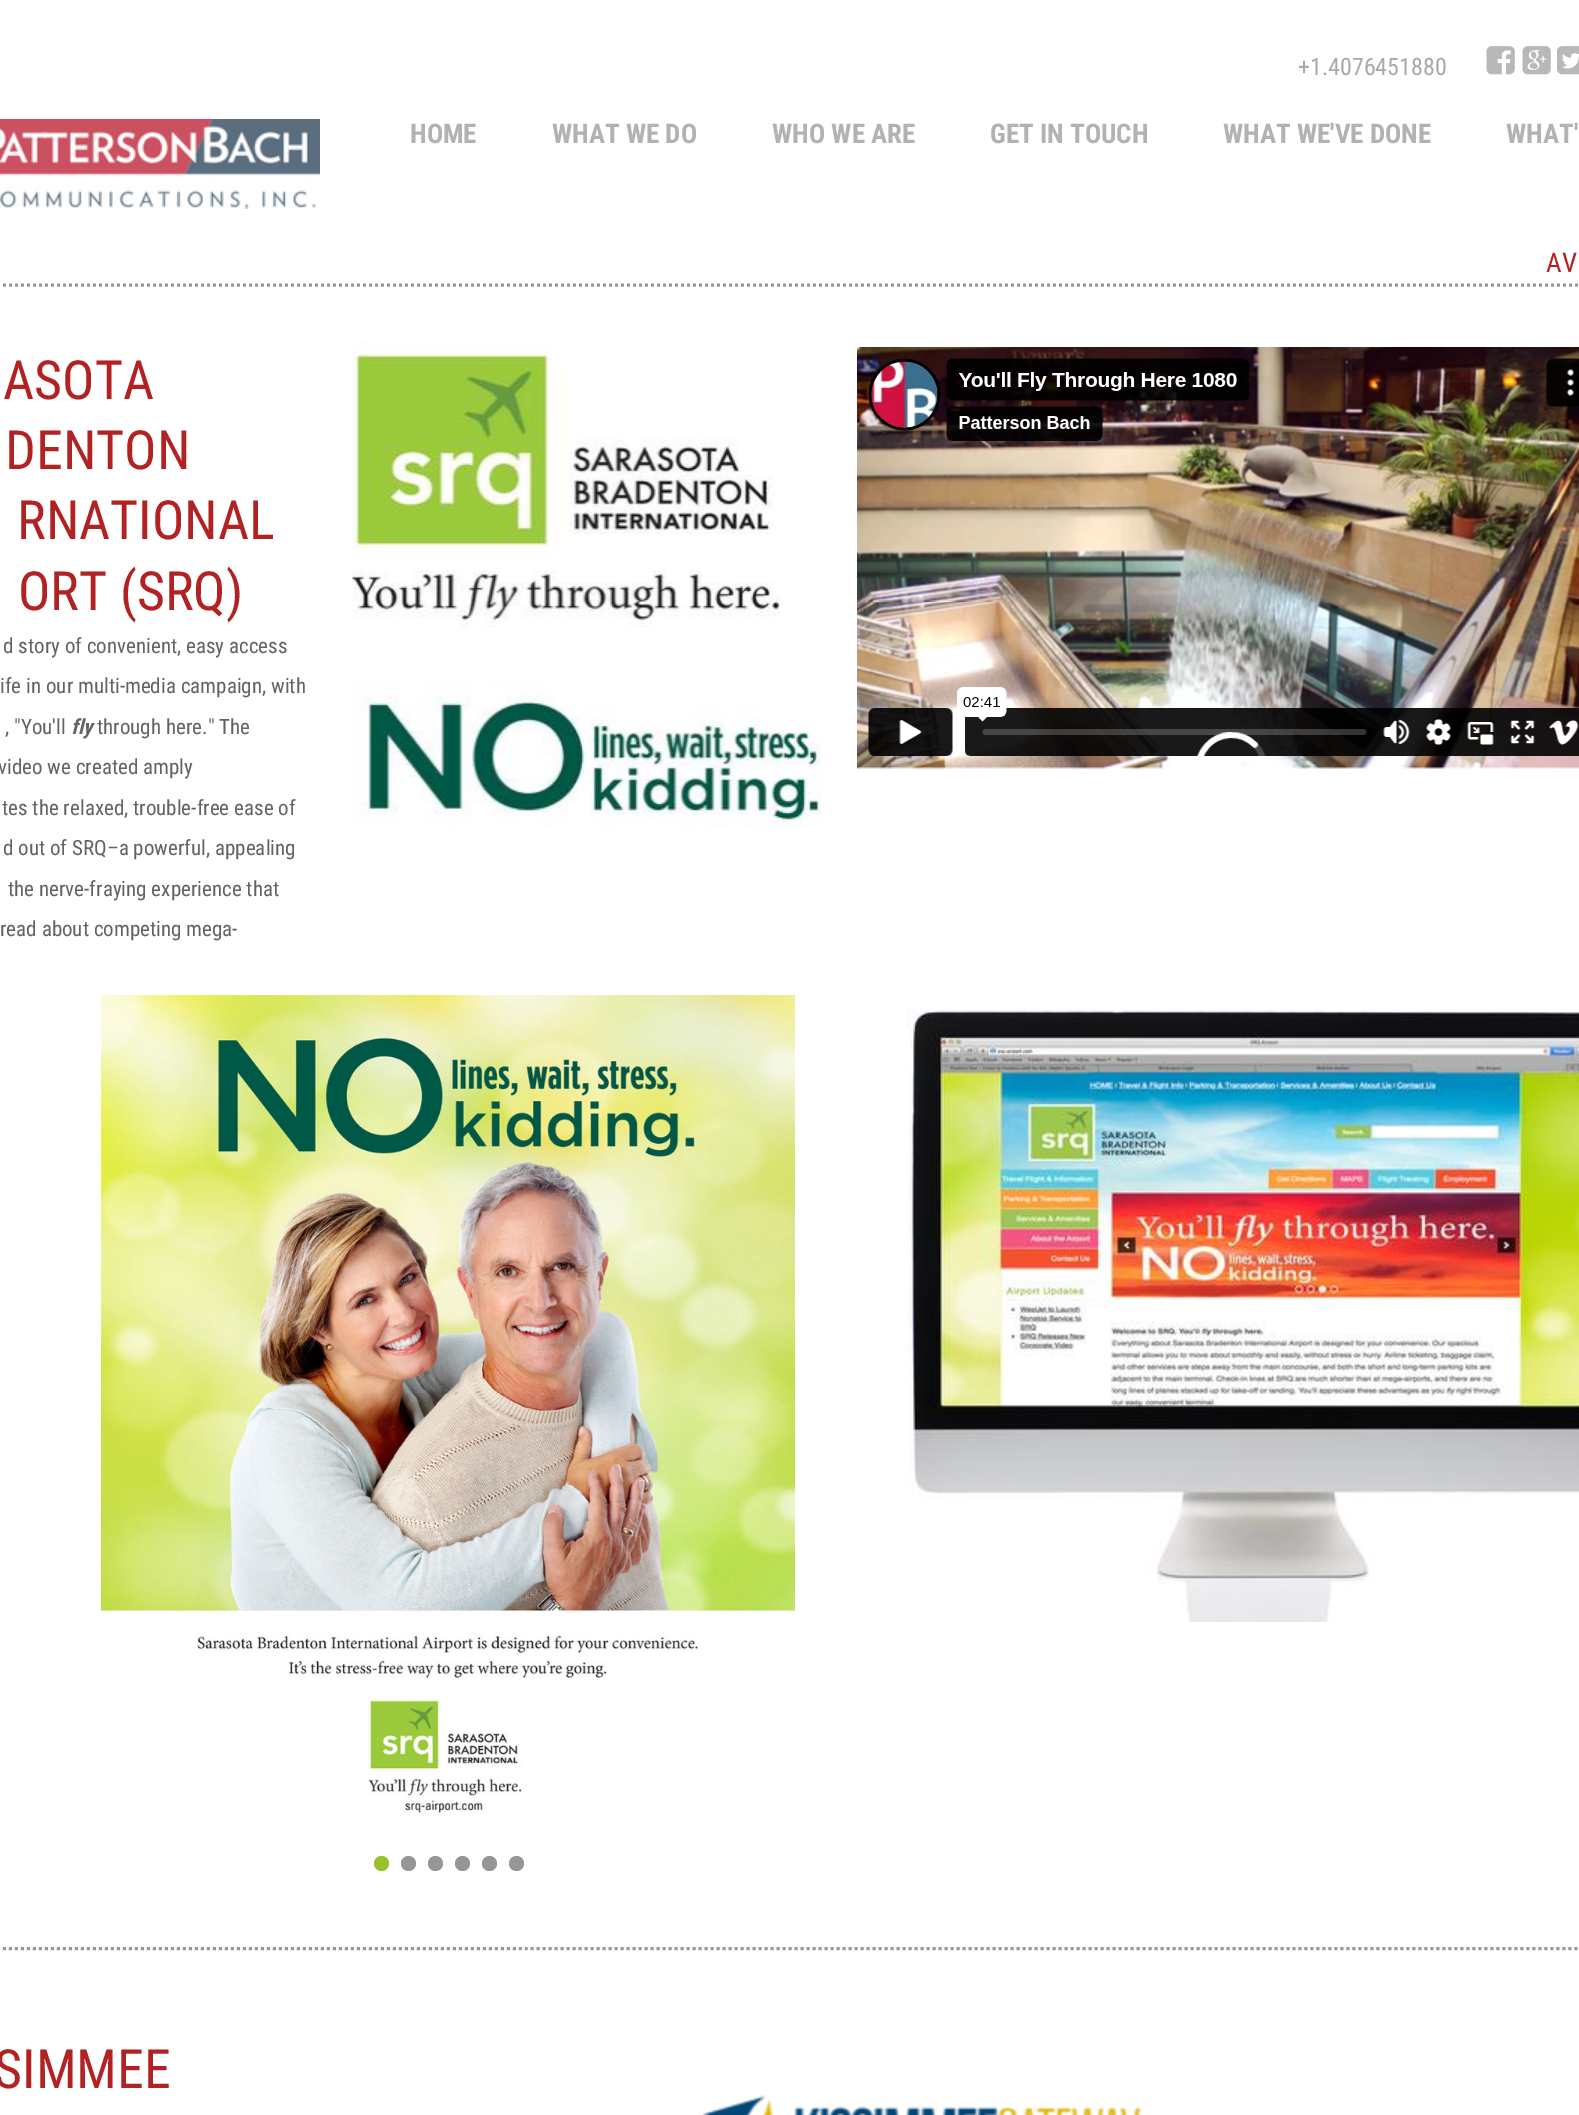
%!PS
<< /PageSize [1579 2115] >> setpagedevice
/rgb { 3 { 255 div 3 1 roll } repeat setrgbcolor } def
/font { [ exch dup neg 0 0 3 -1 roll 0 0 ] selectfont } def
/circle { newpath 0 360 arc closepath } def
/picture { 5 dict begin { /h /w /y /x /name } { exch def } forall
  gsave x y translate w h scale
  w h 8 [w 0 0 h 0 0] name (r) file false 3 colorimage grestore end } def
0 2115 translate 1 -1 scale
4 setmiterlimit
255 255 255 rgb
0 0 1579 2115 rectfill
(img/1.rgb) 1486 46 29 29 picture
(img/2.rgb) 1522 46 29 29 picture
(img/3.rgb) 1557 46 22 29 picture
(img/4.rgb) 0 119 320 90 picture
153 153 153 rgb
3 setlinewidth
[3 3] 0 setdash
-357 285 moveto 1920 285 lineto stroke
(img/5.rgb) 352 342 428 287 picture
(img/6.rgb) 857 347 722 422 picture
(img/7.rgb) 350 682 472 145 picture
(img/8.rgb) 101 995 694 821 picture
152 194 42 rgb
381.5 1863.5 7.5 circle fill
150 150 150 rgb
408.5 1863.5 7.5 circle fill
435.5 1863.5 7.5 circle fill
462.5 1863.5 7.5 circle fill
489.5 1863.5 7.5 circle fill
516.5 1863.5 7.5 circle fill
(img/9.rgb) 906 1009 673 613 picture
153 153 153 rgb
-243 1948.5 moveto 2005.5 1948.5 lineto stroke
(img/10.rgb) 702 2095 440 20 picture
/RobotoCondensed-Regular 24 font
169 169 169 rgb
1298 75 moveto (+1.4076451880) show
/RobotoCondensed-Bold 27 font
178 178 178 rgb
[
  [(HOME) 410 143]
  [(WHAT WE DO) 552 143]
  [(WHO WE ARE) 772 143]
  [(GET IN TOUCH) 990 143]
  [(WHAT WE'VE DONE) 1223 143]
  [(WHAT') 1506 143]
] { aload pop moveto show } forall
/RobotoCondensed-Regular 27 font
178 34 34 rgb
1546 272 moveto (AV) show
/RobotoCondensed-Regular 54 font
[
  [(ASOTA) 3 399]
  [(DENTON) 5 469]
  [(RNATIONAL) 17 539]
  [(ORT \(SRQ\)) 18 610]
] { aload pop moveto show } forall
/RobotoCondensed-Regular 21 font
99 99 99 rgb
[
  [(d story of convenient, easy access) 3 653]
  [(ife in our multi-media campaign, with) 0 693]
  [(, "You'll) 5 734]
] { aload pop moveto show } forall
/RobotoCondensed-BoldItalic 21 font
71 734 moveto (fly) show
/RobotoCondensed-Regular 21 font
[
  [(through here." The) 97 734]
  [(video we created amply) -2 774]
  [(tes the relaxed, trouble-free ease of) 2 815]
  [(d out of SRQ–a powerful, appealing) 3 855]
  [(the nerve-fraying experience that) 8 896]
  [(read about competing mega-) 0 936]
] { aload pop moveto show } forall
/RobotoCondensed-Regular 54 font
178 34 34 rgb
-6 2088 moveto (SIMMEE) show
showpage
